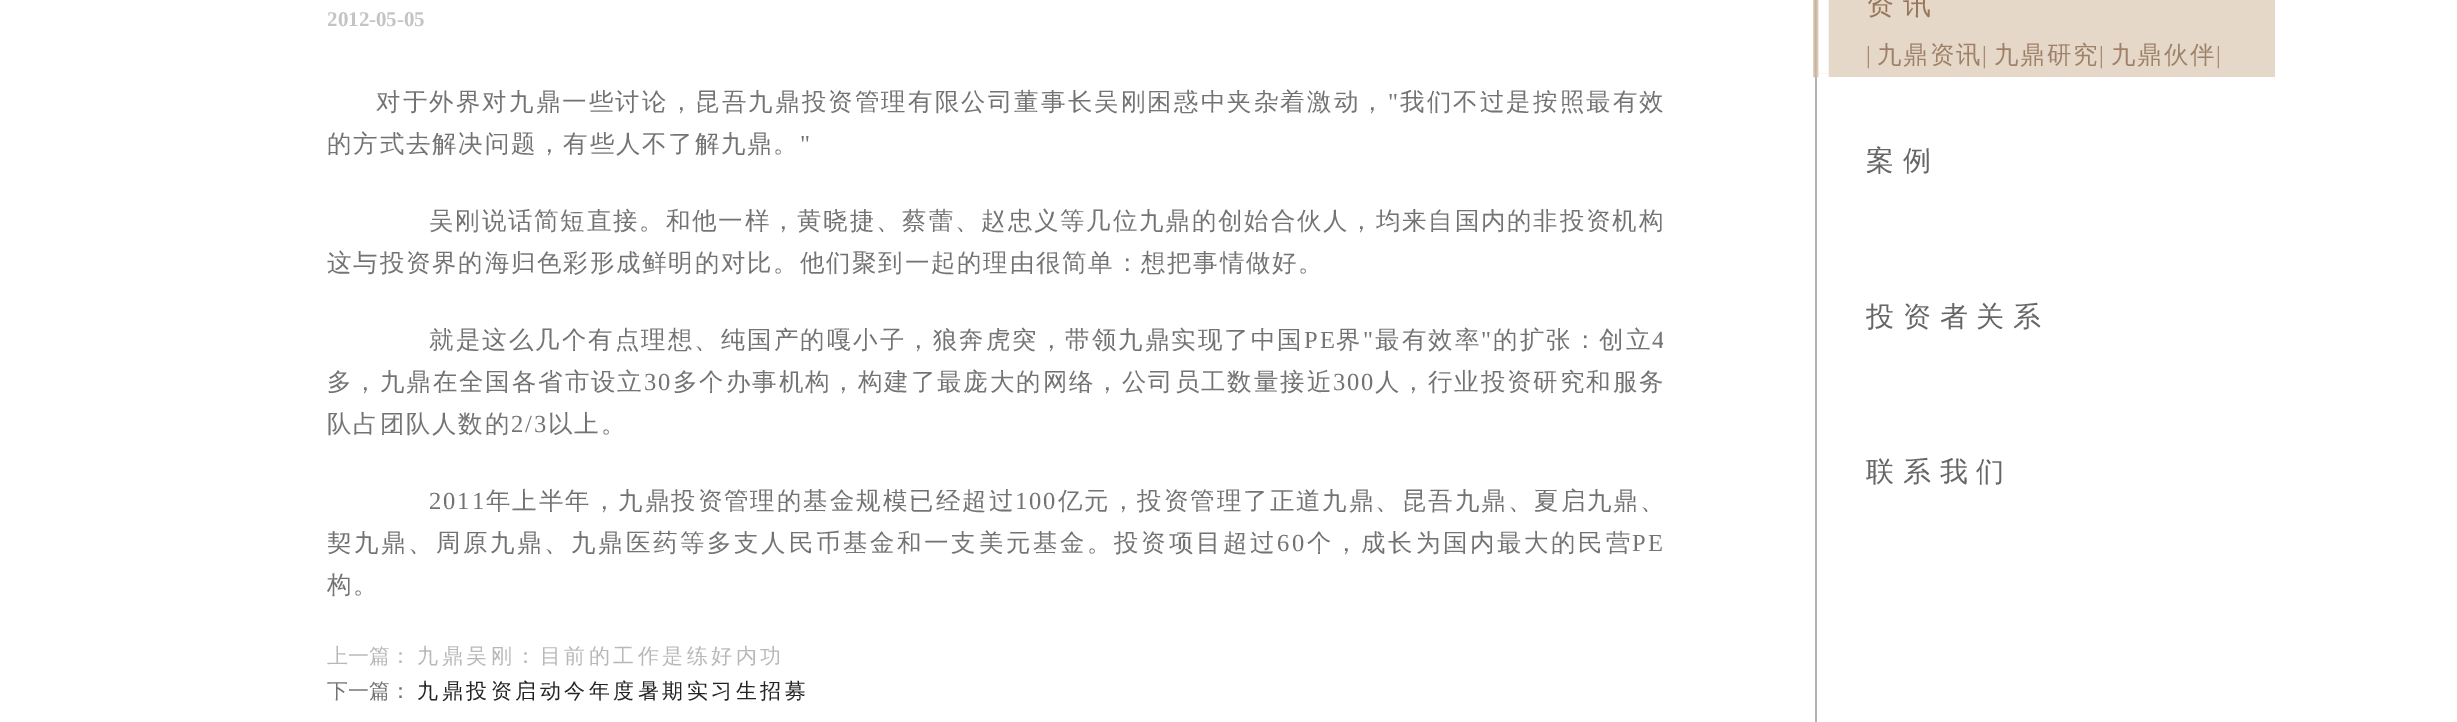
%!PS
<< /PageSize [2457 722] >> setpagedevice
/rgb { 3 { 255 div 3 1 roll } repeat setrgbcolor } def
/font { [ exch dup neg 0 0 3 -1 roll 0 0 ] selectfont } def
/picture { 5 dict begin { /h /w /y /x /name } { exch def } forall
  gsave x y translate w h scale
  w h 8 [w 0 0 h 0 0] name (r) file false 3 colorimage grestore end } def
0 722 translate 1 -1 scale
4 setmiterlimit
255 255 255 rgb
0 0 2457 722 rectfill
179 179 179 rgb
1815 77 2 645 rectfill
229 216 200 rgb
1828 0 447 77 rectfill
(img/1.rgb) 1813 0 16 78 picture
1813 18 16 56 rectfill
(img/2.rgb) 1813 18 16 56 picture
/LiberationSerif-Bold 21 font
196 196 196 rgb
327 26 moveto (2012-05-05) show
/WenQuanYiZenHei-Medium 24.5 font
115 115 115 rgb
376 110 moveto 2.1 0 (对于外界对九鼎一些讨论，昆吾九鼎投资管理有限公司董事长吴刚困惑中夹杂着激动，) ashow
/LiberationSerif-Regular 24.5 font
1388 110 moveto 2.1 0 (") ashow
/WenQuanYiZenHei-Medium 24.5 font
1400 110 moveto 2.1 0 (我们不过是按照最有效) ashow
327 152 moveto 1.75 0 (的方式去解决问题，有些人不了解九鼎。) ashow
/LiberationSerif-Regular 24.5 font
800 152 moveto 1.75 0 (") ashow
/WenQuanYiZenHei-Medium 24.5 font
429 229 moveto 1.8 0 (吴刚说话简短直接。和他一样，黄晓捷、蔡蕾、赵忠义等几位九鼎的创始合伙人，均来自国内的非投资机构) ashow
327 271 moveto 1.75 0 (这与投资界的海归色彩形成鲜明的对比。他们聚到一起的理由很简单：想把事情做好。) ashow
429 348 moveto 2 0 (就是这么几个有点理想、纯国产的嘎小子，狼奔虎突，带领九鼎实现了中国) ashow
/LiberationSerif-Regular 24.5 font
1304 348 moveto 2 0 (PE) ashow
/WenQuanYiZenHei-Medium 24.5 font
1336 348 moveto 2 0 (界) ashow
/LiberationSerif-Regular 24.5 font
1363 348 moveto 2 0 (") ashow
/WenQuanYiZenHei-Medium 24.5 font
1375 348 moveto 2 0 (最有效率) ashow
/LiberationSerif-Regular 24.5 font
1481 348 moveto 2 0 (") ashow
/WenQuanYiZenHei-Medium 24.5 font
1493 348 moveto 2 0 (的扩张：创立) ashow
gsave
327 0 1336 621 rectclip
/LiberationSerif-Regular 24.5 font
1652 348 moveto 2 0 (4) ashow
grestore
327 390 moveto 1.9 0 (多，九鼎在全国各省市设立) ashow
/LiberationSerif-Regular 24.5 font
644 390 moveto 1.9 0 (30) ashow
/WenQuanYiZenHei-Medium 24.5 font
673 390 moveto 1.9 0 (多个办事机构，构建了最庞大的网络，公司员工数量接近) ashow
/LiberationSerif-Regular 24.5 font
1333 390 moveto 1.9 0 (300) ashow
/WenQuanYiZenHei-Medium 24.5 font
1375 390 moveto 1.9 0 (人，行业投资研究和服务) ashow
327 432 moveto 1.75 0 (队占团队人数的) ashow
/LiberationSerif-Regular 24.5 font
511 432 moveto 1.75 0 (2/3) ashow
/WenQuanYiZenHei-Medium 24.5 font
548 432 moveto 1.75 0 (以上。) ashow
/LiberationSerif-Regular 24.5 font
429 509 moveto 1.95 0 (2011) ashow
/WenQuanYiZenHei-Medium 24.5 font
486 509 moveto 1.95 0 (年上半年，九鼎投资管理的基金规模已经超过) ashow
/LiberationSerif-Regular 24.5 font
1015 509 moveto 1.95 0 (100) ashow
/WenQuanYiZenHei-Medium 24.5 font
1058 509 moveto 1.95 0 (亿元，投资管理了正道九鼎、昆吾九鼎、夏启九鼎、) ashow
327 551 moveto 2.65 0 (契九鼎、周原九鼎、九鼎医药等多支人民币基金和一支美元基金。投资项目超过) ashow
/LiberationSerif-Regular 24.5 font
1277 551 moveto 2.65 0 (60) ashow
/WenQuanYiZenHei-Medium 24.5 font
1307 551 moveto 2.65 0 (个，成长为国内最大的民营) ashow
/LiberationSerif-Regular 24.5 font
1632 551 moveto 2.65 0 (PE) ashow
/WenQuanYiZenHei-Medium 24.5 font
327 593 moveto 1.75 0 (构。) ashow
/WenQuanYiZenHei-Medium 21 font
184 184 184 rgb
327 663 moveto (上一篇：) show
417 663 moveto 3.5 0 (九鼎吴刚：目前的工作是练好内功) ashow
115 115 115 rgb
327 698 moveto (下一篇：) show
35 35 35 rgb
417 698 moveto 3.5 0 (九鼎投资启动今年度暑期实习生招募) ashow
/WenQuanYiZenHei-Medium 28 font
151 118 90 rgb
1866 14 moveto 8.75 0 (资讯) ashow
/LiberationSerif-Regular 24.5 font
167 138 112 rgb
1866 63 moveto 1.75 0 (|) ashow
/WenQuanYiZenHei-Medium 24.5 font
159 129 105 rgb
1877 63 moveto 1.75 0 (九鼎资讯) ashow
/LiberationSerif-Regular 24.5 font
167 138 112 rgb
1982 63 moveto 1.75 0 (|) ashow
/WenQuanYiZenHei-Medium 24.5 font
159 129 105 rgb
1994 63 moveto 1.75 0 (九鼎研究) ashow
/LiberationSerif-Regular 24.5 font
167 138 112 rgb
2099 63 moveto 1.75 0 (|) ashow
/WenQuanYiZenHei-Medium 24.5 font
159 129 105 rgb
2111 63 moveto 1.75 0 (九鼎伙伴) ashow
/LiberationSerif-Regular 24.5 font
167 138 112 rgb
2216 63 moveto 1.75 0 (|) ashow
/WenQuanYiZenHei-Medium 28 font
102 102 102 rgb
1866 170 moveto 8.75 0 (案例) ashow
1866 326 moveto 8.75 0 (投资者关系) ashow
1866 481 moveto 8.75 0 (联系我们) ashow
showpage
